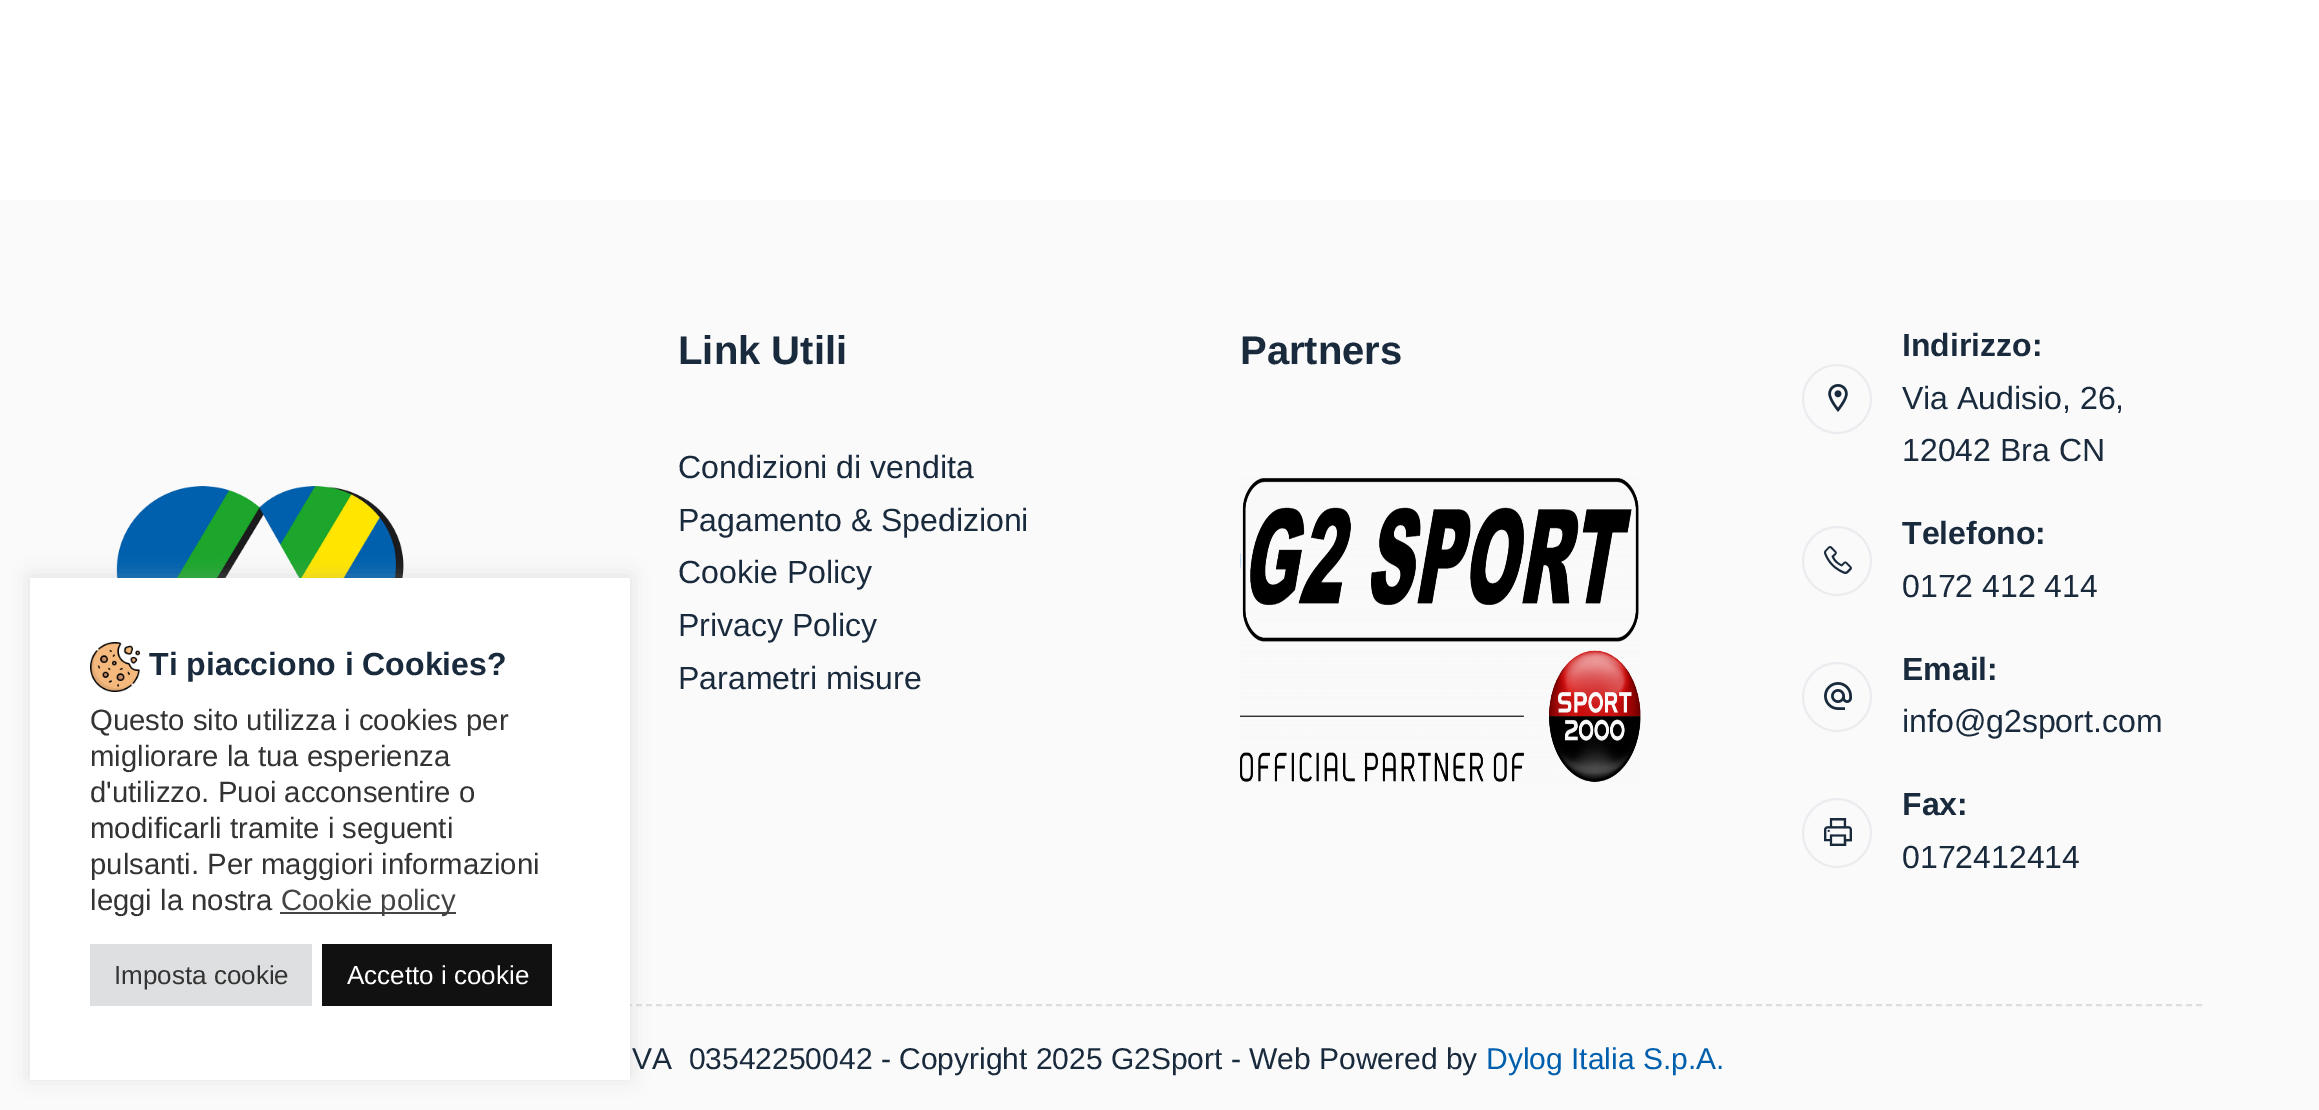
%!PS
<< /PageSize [2319 1110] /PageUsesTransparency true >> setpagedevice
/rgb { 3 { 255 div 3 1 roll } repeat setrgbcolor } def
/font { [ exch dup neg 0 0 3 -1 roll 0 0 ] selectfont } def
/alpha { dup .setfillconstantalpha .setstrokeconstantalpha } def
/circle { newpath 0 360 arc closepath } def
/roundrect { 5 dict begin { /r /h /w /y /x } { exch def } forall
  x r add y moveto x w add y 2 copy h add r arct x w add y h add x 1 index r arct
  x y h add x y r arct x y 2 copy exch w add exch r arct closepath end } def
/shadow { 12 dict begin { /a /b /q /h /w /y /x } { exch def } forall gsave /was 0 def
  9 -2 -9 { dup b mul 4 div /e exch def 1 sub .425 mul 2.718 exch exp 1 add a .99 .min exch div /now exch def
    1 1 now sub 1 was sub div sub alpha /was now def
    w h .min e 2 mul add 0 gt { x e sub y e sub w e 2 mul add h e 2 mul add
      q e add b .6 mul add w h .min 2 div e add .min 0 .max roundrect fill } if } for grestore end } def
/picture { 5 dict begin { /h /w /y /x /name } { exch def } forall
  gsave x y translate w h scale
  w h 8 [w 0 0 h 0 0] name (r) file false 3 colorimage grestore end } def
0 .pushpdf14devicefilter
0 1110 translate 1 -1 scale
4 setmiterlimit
255 255 255 rgb
0 0 2319 1110 rectfill
250 250 250 rgb
0 200 2319 910 rectfill
(img/7.rgb) 116 486 288 92 picture
221 221 221 rgb
2 setlinewidth
[6 4] 0 setdash
116 1005 moveto 2204 1005 lineto stroke
172 171 171 rgb
30 576 600 502 0 10 0.3 shadow
255 255 255 rgb
30 578 600 502 rectfill
(img/1.rgb) 90 642 50 50 picture
[
  [280 912 176 2 68 68 68]
  [90 944 222 62 222 223 224]
  [322 944 230 62 17 17 17]
] { aload pop rgb rectfill } forall
(img/2.rgb) 1240 477 401 306 picture
234 236 239 rgb
[] 0 setdash
1837 399 34 circle stroke
(img/3.rgb) 1828 384 20 28 picture
1837 561 34 circle stroke
(img/4.rgb) 1824 546 28 28 picture
1837 697 34 circle stroke
(img/5.rgb) 1824 682 28 28 picture
1837 833 34 circle stroke
(img/6.rgb) 1824 818 28 28 picture
/LiberationSans-Bold 32 font
25 42 61 rgb
149 675 moveto (Ti piacciono i Cookies?) show
/LiberationSans-Regular 29.3 font
51 51 51 rgb
[
  [(Questo sito utilizza i cookies per) 90 730]
  [(migliorare la tua esperienza) 90 766]
  [(d'utilizzo. Puoi acconsentire o) 90 802]
  [(modificarli tramite i seguenti) 90 838]
  [(pulsanti. Per maggiori informazioni) 90 874]
  [(leggi la nostra) 90 910]
] { aload pop moveto show } forall
68 68 68 rgb
281 910 moveto (Cookie policy) show
/LiberationSans-Regular 26 font
51 51 51 rgb
114 984 moveto (Imposta cookie) show
255 255 255 rgb
347 984 moveto (Accetto i cookie) show
/LiberationSans-Bold 40 font
25 42 61 rgb
678 364 moveto (Link Utili) show
/LiberationSans-Regular 32 font
[
  [(Condizioni di vendita) 678 478]
  [(Pagamento & Spedizioni) 678 531]
  [(Cookie Policy) 678 583]
  [(Privacy Policy) 678 636]
  [(Parametri misure) 678 689]
] { aload pop moveto show } forall
/LiberationSans-Bold 40 font
1240 364 moveto (Partners) show
/LiberationSans-Bold 32 font
1902 356 moveto (Indirizzo:) show
/LiberationSans-Regular 32 font
1902 409 moveto (Via Audisio, 26,) show
1902 461 moveto (12042 Bra CN) show
/LiberationSans-Bold 32 font
1902 544 moveto (Telefono:) show
/LiberationSans-Regular 32 font
1902 597 moveto (0172 412 414) show
/LiberationSans-Bold 32 font
1902 680 moveto (Email:) show
/LiberationSans-Regular 32 font
1902 732 moveto (info@g2sport.com) show
/LiberationSans-Bold 32 font
1902 815 moveto (Fax:) show
/LiberationSans-Regular 32 font
1902 868 moveto (0172412414) show
/LiberationSans-Regular 30 font
632 1069 moveto (VA  03542250042 - Copyright 2025 G2Sport - Web Powered by) show
0 95 173 rgb
1486 1069 moveto (Dylog Italia S.p.A.) show
.poppdf14devicefilter showpage
